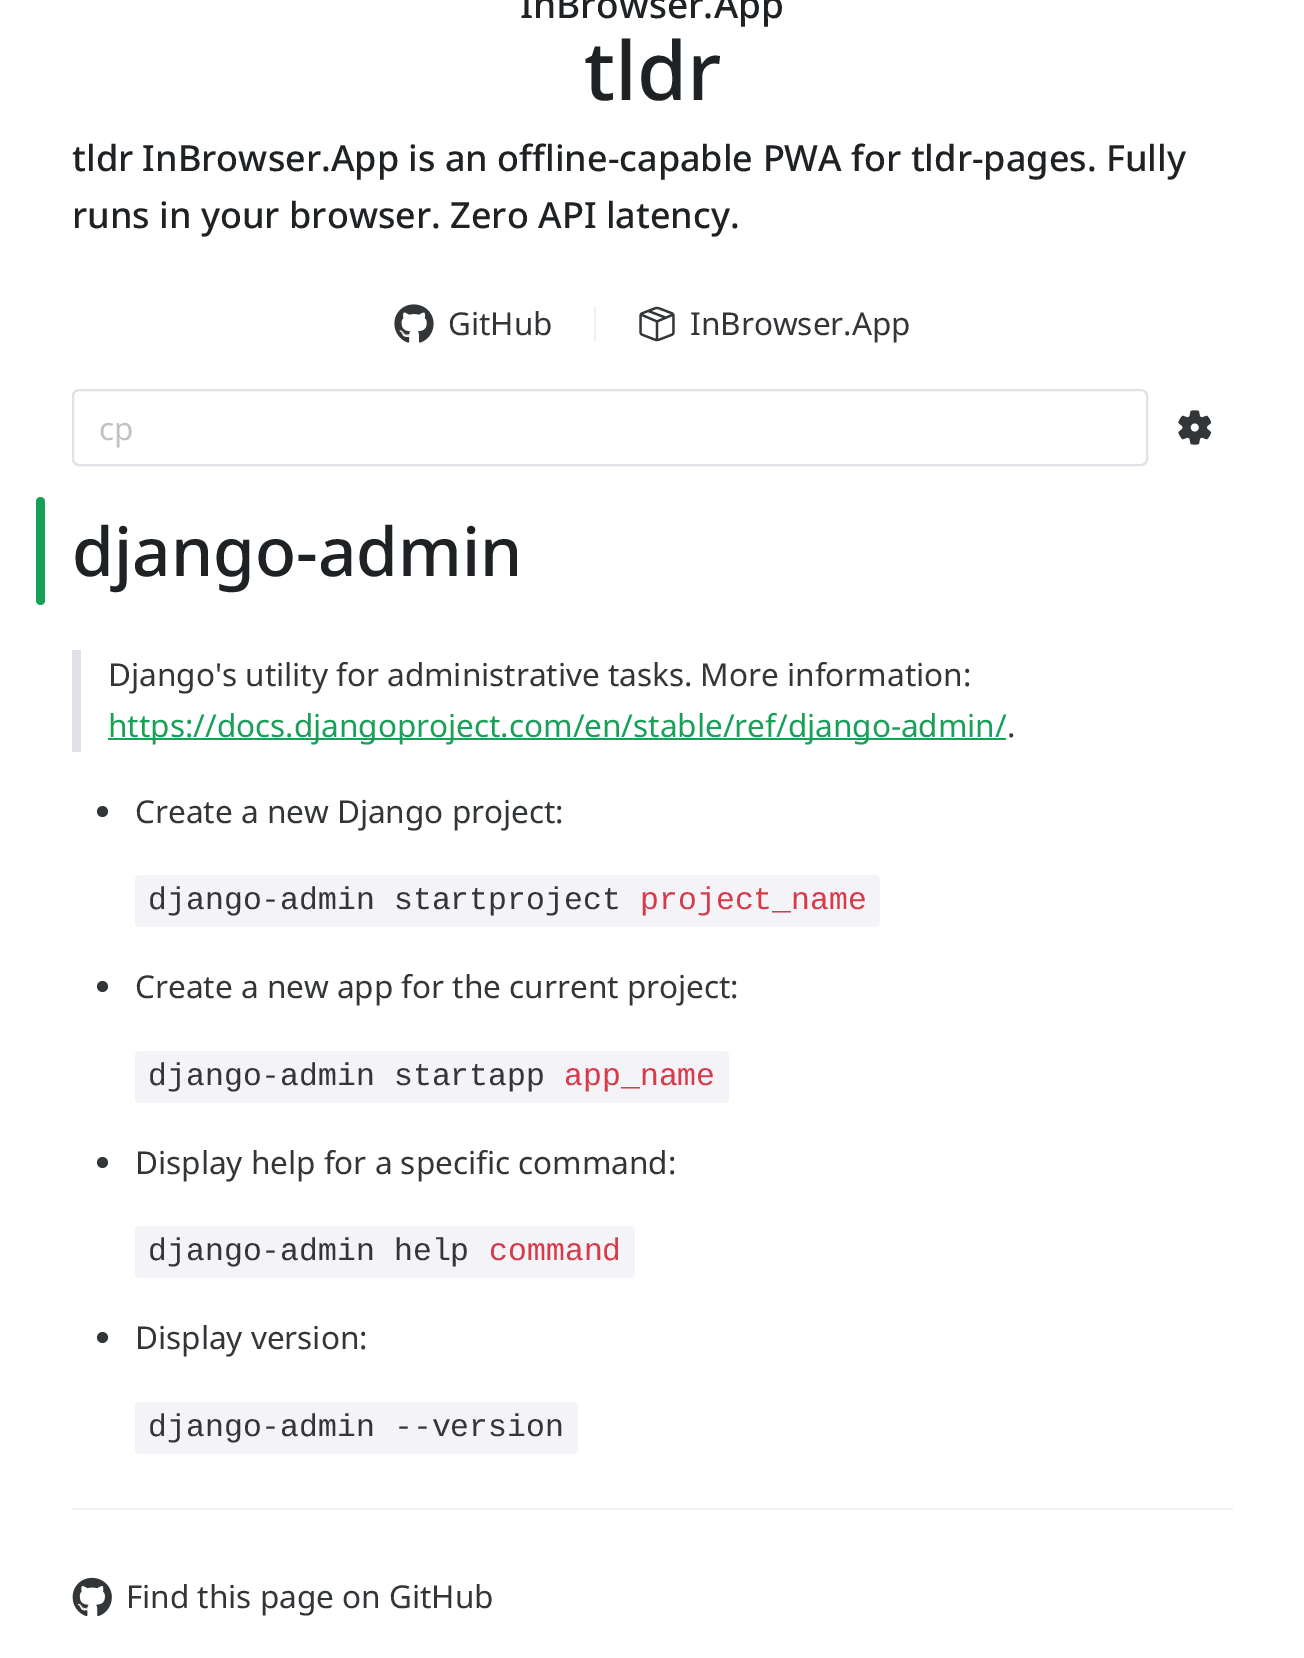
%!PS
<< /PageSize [1304 1658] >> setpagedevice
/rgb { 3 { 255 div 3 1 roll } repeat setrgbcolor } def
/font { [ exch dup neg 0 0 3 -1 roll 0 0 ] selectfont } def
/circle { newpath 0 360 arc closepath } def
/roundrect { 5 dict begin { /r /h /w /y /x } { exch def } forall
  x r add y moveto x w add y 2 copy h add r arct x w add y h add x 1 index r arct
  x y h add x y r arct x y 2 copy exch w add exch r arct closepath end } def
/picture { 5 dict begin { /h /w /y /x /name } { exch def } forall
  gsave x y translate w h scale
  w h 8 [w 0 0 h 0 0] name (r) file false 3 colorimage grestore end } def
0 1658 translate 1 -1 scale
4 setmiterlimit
255 255 255 rgb
0 0 1304 1658 rectfill
(img/1.rgb) 394 304 40 39 picture
239 239 245 rgb
594 306 2 36 rectfill
(img/2.rgb) 639 306 36 36 picture
224 224 230 rgb
2 setlinewidth
73 390 1074 75 6 roundrect stroke
(img/3.rgb) 1178 410 34 35 picture
24 160 88 rgb
36 497 9 108 4.5 roundrect fill
224 224 230 rgb
72 650 9 102 rectfill
24 160 88 rgb
108 738 898 2 rectfill
51 54 57 rgb
102.5 811.5 5.5 circle fill
244 244 248 rgb
135 875 745 52 5 roundrect fill
51 54 57 rgb
102.5 986.5 5.5 circle fill
244 244 248 rgb
135 1051 594 52 5 roundrect fill
51 54 57 rgb
102.5 1162.5 5.5 circle fill
244 244 248 rgb
135 1226 500 52 5 roundrect fill
51 54 57 rgb
102.5 1337.5 5.5 circle fill
244 244 248 rgb
135 1402 443 52 5 roundrect fill
239 239 245 rgb
72 1508 1161 2 rectfill
(img/4.rgb) 72 1577 40 40 picture
/NotoSans-Medium 37 font
31 34 37 rgb
520 18 moveto (InBrowser.App) show
/NotoSans-Medium 81 font
584 100 moveto (tldr) show
/NotoSans-Medium 36 font
72 171 moveto (tldr InBrowser.App is an offline-capable PWA for tldr-pages. Fully) show
72 228 moveto (runs in your browser. Zero API latency.) show
/NotoSans-Regular 31.5 font
51 54 57 rgb
448 335 moveto (GitHub) show
690 335 moveto (InBrowser.App) show
194 194 194 rgb
99 440 moveto (cp) show
/NotoSans-Medium 67.5 font
31 34 37 rgb
72 576 moveto (django-admin) show
/NotoSans-Regular 31.5 font
51 54 57 rgb
108 686 moveto (Django's utility for administrative tasks. More information:) show
24 160 88 rgb
108 737 moveto (https://docs.djangoproject.com/en/stable/ref/django-admin/) show
51 54 57 rgb
1007 737 moveto (.) show
135 823 moveto (Create a new Django project:) show
/LiberationMono-Regular 31.5 font
148 909 moveto (django-admin startproject) show
215 58 73 rgb
640 909 moveto (project_name) show
/NotoSans-Regular 31.5 font
51 54 57 rgb
135 998 moveto (Create a new app for the current project:) show
/LiberationMono-Regular 31.5 font
148 1085 moveto (django-admin startapp) show
215 58 73 rgb
564 1085 moveto (app_name) show
/NotoSans-Regular 31.5 font
51 54 57 rgb
135 1174 moveto (Display help for a specific command:) show
/LiberationMono-Regular 31.5 font
148 1260 moveto (django-admin help) show
215 58 73 rgb
489 1260 moveto (command) show
/NotoSans-Regular 31.5 font
51 54 57 rgb
135 1349 moveto (Display version:) show
/LiberationMono-Regular 31.5 font
148 1436 moveto (django-admin --version) show
/NotoSans-Regular 31.5 font
126 1608 moveto (Find this page on GitHub) show
showpage
